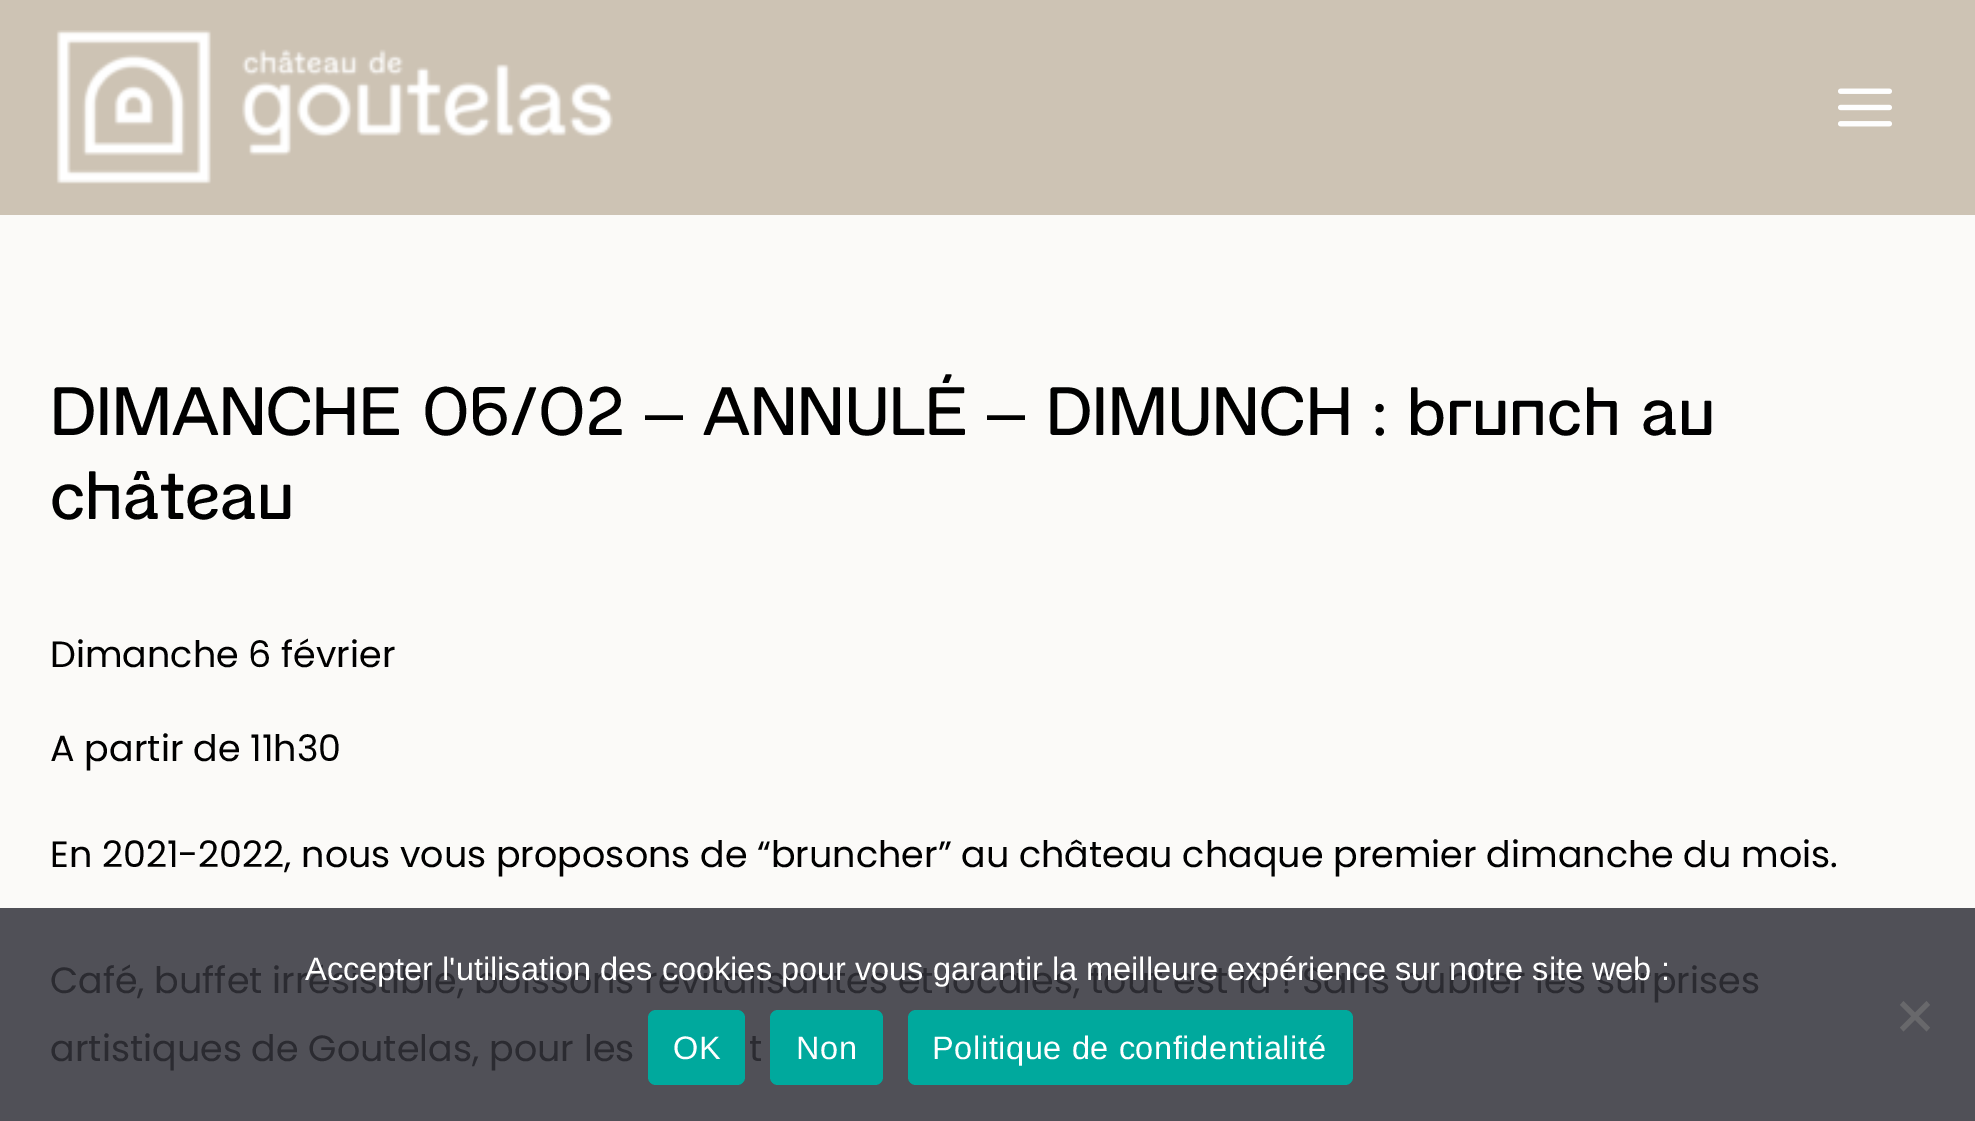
%!PS
<< /PageSize [1975 1121] >> setpagedevice
/rgb { 3 { 255 div 3 1 roll } repeat setrgbcolor } def
/font { [ exch dup neg 0 0 3 -1 roll 0 0 ] selectfont } def
/roundrect { 5 dict begin { /r /h /w /y /x } { exch def } forall
  x r add y moveto x w add y 2 copy h add r arct x w add y h add x 1 index r arct
  x y h add x y r arct x y 2 copy exch w add exch r arct closepath end } def
/picture { 5 dict begin { /h /w /y /x /name } { exch def } forall
  gsave x y translate w h scale
  w h 8 [w 0 0 h 0 0] name (r) file false 3 colorimage grestore end } def
0 1121 translate 1 -1 scale
4 setmiterlimit
251 250 248 rgb
0 0 1975 1121 rectfill
80 80 87 rgb
0 908 1975 213 rectfill
205 195 180 rgb
0 0 1975 215 rectfill
(img/1.rgb) 56 30 557 154 picture
(img/2.rgb) 1838 88 54 39 picture
104 104 107 rgb
1926.5 1001 moveto 1930 1005 lineto 1903.5 1031.5 lineto 1900 1027.5 lineto closepath fill
1900 1005 moveto 1903.5 1001 lineto 1930 1027.5 lineto 1926.5 1031.5 lineto closepath fill
0 169 157 rgb
648 1010 97 75 8 roundrect fill
770 1010 113 75 8 roundrect fill
908 1010 445 75 8 roundrect fill
/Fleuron-Regular 68.5 font
0 0 0 rgb
50 435 moveto (DIMANCHE 06/02) show
/LiberationSans-Regular 68.5 font
645 435 moveto (–) show
/Fleuron-Regular 68.5 font
703 435 moveto (ANNULÉ) show
/LiberationSans-Regular 68.5 font
987 435 moveto (–) show
/Fleuron-Regular 68.5 font
1046 435 moveto (DIMUNCH : brunch au) show
50 519 moveto (château) show
/Poppins-Regular 36.5 font
50 667 moveto (Dimanche 6 février) show
50 761 moveto (A partir de 11h30) show
50 867 moveto -0.1 0 32 (En 2021-2022, nous vous proposons de “bruncher” au château chaque premier dimanche du mois.) widthshow
43 43 49 rgb
[
  [(Café, buffet irrésistible, boissons revitalisantes et locales, tout est là ! Sans oublier les surprises) 50 993]
  [(artistiques de Goutelas, pour les) 50 1061]
  [(t) 749 1061]
] { aload pop moveto show } forall
/LiberationSans-Regular 32.5 font
255 255 255 rgb
305 980 moveto (Accepter l'utilisation des cookies pour vous garantir la meilleure expérience sur notre site web :) show
673 1059 moveto 0.6 0 (OK) ashow
796 1059 moveto 0.6 0 (Non) ashow
932 1059 moveto 0.6 0 (Politique de confidentialité) ashow
showpage
